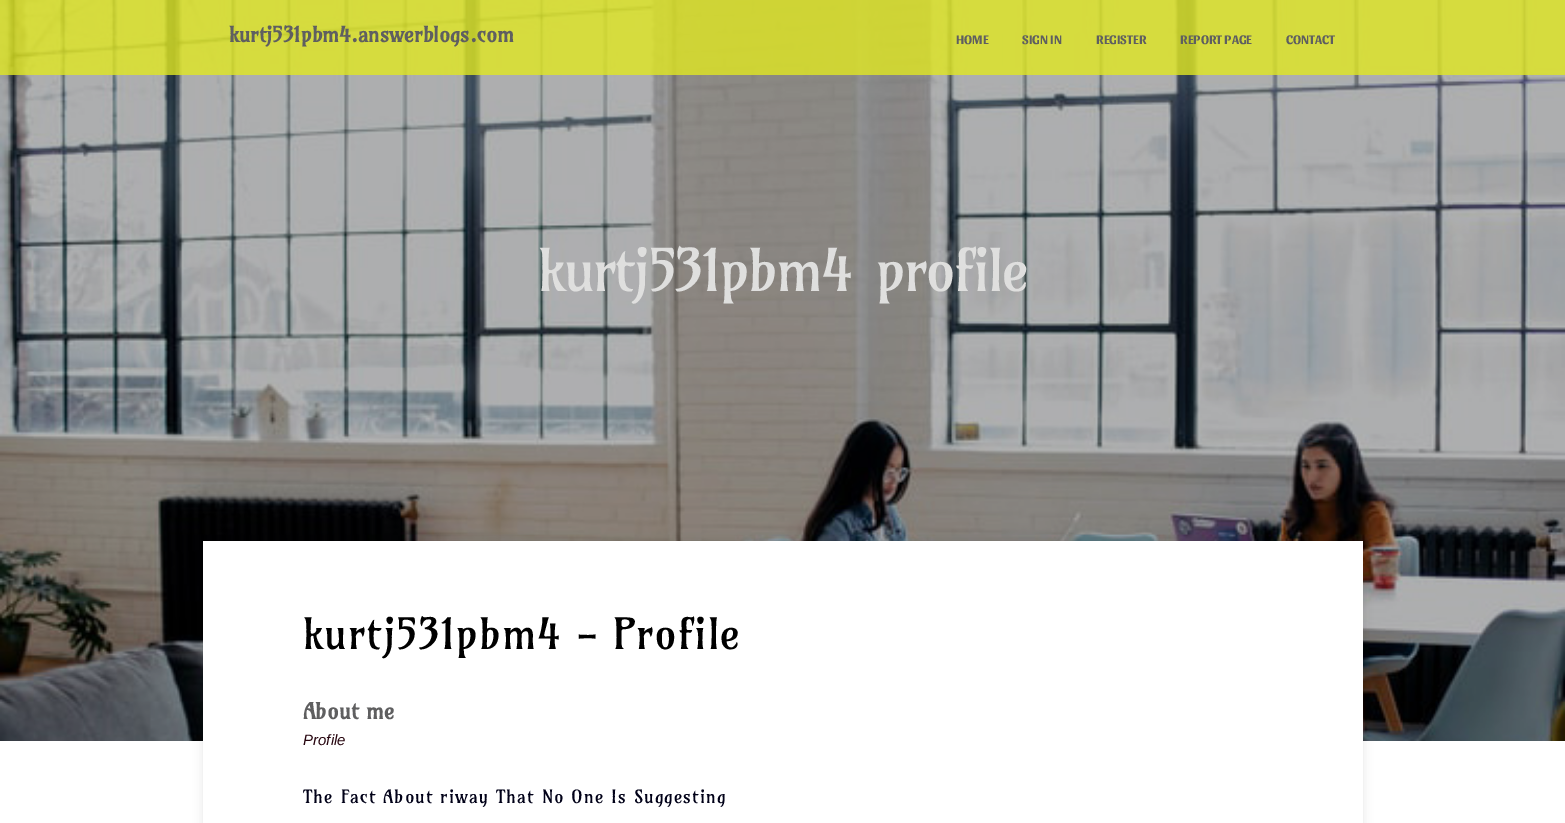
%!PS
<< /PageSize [1565 823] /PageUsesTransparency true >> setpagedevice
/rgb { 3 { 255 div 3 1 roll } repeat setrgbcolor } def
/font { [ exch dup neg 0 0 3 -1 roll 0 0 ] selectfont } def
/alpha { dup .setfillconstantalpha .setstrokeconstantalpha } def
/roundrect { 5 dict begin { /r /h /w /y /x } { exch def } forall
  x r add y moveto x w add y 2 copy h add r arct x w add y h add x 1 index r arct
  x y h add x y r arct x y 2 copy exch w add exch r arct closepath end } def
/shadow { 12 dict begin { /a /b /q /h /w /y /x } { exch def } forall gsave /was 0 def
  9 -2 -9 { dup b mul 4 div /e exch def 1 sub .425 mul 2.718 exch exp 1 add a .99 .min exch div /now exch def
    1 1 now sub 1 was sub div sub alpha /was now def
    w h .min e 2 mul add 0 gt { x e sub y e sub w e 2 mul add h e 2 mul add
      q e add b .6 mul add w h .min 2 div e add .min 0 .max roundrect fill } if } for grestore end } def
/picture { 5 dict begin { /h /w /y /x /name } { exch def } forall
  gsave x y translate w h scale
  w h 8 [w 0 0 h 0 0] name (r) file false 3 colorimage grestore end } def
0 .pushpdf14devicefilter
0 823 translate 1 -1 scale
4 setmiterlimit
255 255 255 rgb
0 0 1565 823 rectfill
(img/1.rgb) 0 0 1565 741 picture
0.8 alpha
224 231 34 rgb
0 0 1565 75 rectfill
1 alpha
0 0 0 rgb
203 541 1160 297 0 5 0.1 shadow
255 255 255 rgb
203 541 1160 282 rectfill
/Amarante-Bold 21 font
95 95 96 rgb
229 42 moveto (kurtj531pbm4.answerblogs.com) show
/Sansita-Bold 13 font
[
  [(HOME) 956 44]
  [(SIGN IN) 1022 44]
  [(REGISTER) 1096 44]
  [(REPORT PAGE) 1180 44]
  [(CONTACT) 1286 44]
] { aload pop moveto show } forall
/Amarante-Regular 58 font
223 223 222 rgb
538 291 moveto 8 0 32 -2 0 (kurtj531pbm4 profile) awidthshow
/Amarante-Regular 42.5 font
0 0 0 rgb
303 649 moveto 1 0 (kurtj531pbm4 - Profile) ashow
/Amarante-Bold 22 font
95 95 96 rgb
303 719 moveto (About me) show
/LiberationSans-Italic 15 font
39 5 15 rgb
303 745 moveto (Profile) show
/Amarante-Regular 18 font
1 1 24 rgb
303 803 moveto 1 0 (The Fact About riway That No One Is Suggesting) ashow
.poppdf14devicefilter showpage
